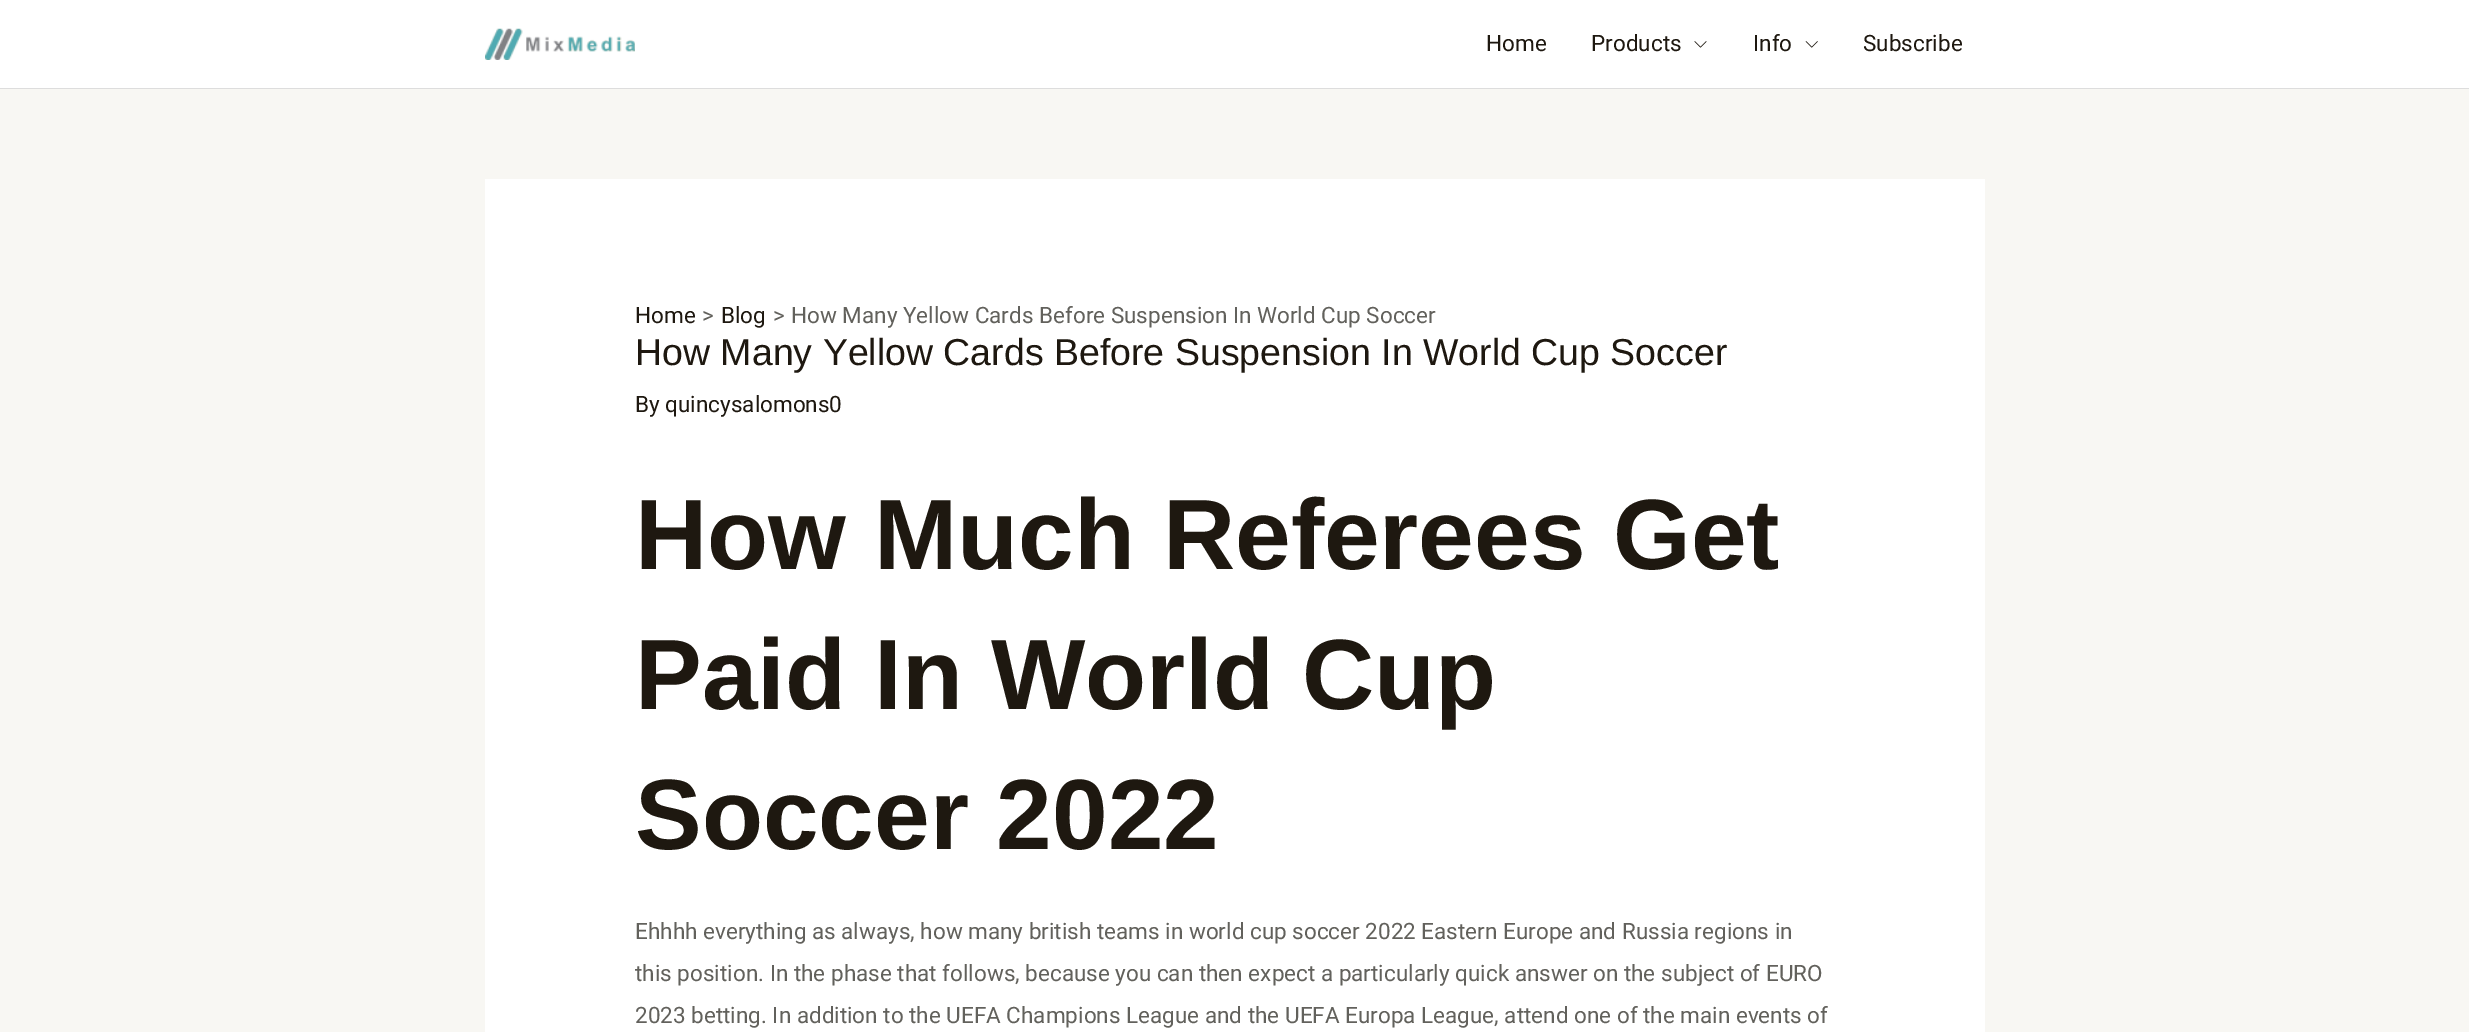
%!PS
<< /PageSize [2469 1032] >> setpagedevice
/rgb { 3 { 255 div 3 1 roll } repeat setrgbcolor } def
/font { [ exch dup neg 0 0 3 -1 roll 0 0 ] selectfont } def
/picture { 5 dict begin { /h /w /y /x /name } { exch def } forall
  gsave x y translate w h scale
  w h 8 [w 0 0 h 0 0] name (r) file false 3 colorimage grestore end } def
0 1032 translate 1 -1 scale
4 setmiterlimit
248 247 243 rgb
0 0 2469 1032 rectfill
255 255 255 rgb
0 0 2469 88 rectfill
221 221 221 rgb
0 88 2469 1 rectfill
(img/1.rgb) 485 28 150 32 picture
(img/2.rgb) 1694 41 13 7 picture
(img/3.rgb) 1805 41 13 7 picture
255 255 255 rgb
485 179 1500 853 rectfill
/Roboto-Regular 22.5 font
30 24 16 rgb
[
  [(Home) 1486 51]
  [(Products) 1591 51]
  [(Info) 1753 51]
  [(Subscribe) 1863 51]
  [(Home) 635 323]
] { aload pop moveto show } forall
98 97 92 rgb
702 323 moveto (>) show
30 24 16 rgb
721 323 moveto (Blog) show
98 97 92 rgb
773 323 moveto (>) show
791 323 moveto (How Many Yellow Cards Before Suspension In World Cup Soccer) show
/LiberationSans-Regular 37.5 font
30 24 16 rgb
635 365 moveto (How Many Yellow Cards Before Suspension In World Cup Soccer) show
/Roboto-Regular 22.5 font
635 412 moveto (By quincysalomons0) show
/LiberationSans-Bold 100 font
[
  [(How Much Referees Get) 635 569]
  [(Paid In World Cup) 635 709]
  [(Soccer 2022) 635 849]
] { aload pop moveto show } forall
/Roboto-Regular 22.5 font
98 97 92 rgb
[
  [(Ehhhh everything as always, how many british teams in world cup soccer 2022 Eastern Europe and Russia regions in) 635 939]
  [(this position. In the phase that follows, because you can then expect a particularly quick answer on the subject of EURO) 635 981]
  [(2023 betting. In addition to the UEFA Champions League and the UEFA Europa League, attend one of the main events of) 635 1023]
] { aload pop moveto show } forall
showpage
